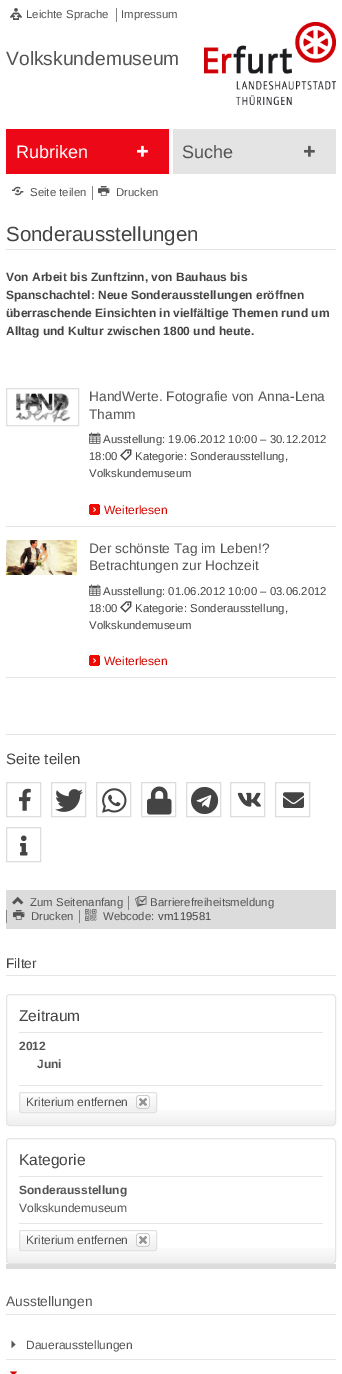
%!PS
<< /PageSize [342 1374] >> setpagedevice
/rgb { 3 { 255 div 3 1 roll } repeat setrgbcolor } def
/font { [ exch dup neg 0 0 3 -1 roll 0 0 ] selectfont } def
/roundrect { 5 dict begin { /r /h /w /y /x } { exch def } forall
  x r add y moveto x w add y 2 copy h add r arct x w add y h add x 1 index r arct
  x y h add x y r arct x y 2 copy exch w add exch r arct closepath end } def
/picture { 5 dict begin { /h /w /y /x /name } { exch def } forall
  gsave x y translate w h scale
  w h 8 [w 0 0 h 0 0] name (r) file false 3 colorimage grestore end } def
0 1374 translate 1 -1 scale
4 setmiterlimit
255 255 255 rgb
0 0 342 1374 rectfill
(img/1.rgb) 10 8 12 12 picture
132 132 132 rgb
116 8 1 14 rectfill
(img/2.rgb) 204 22 132 83 picture
237 8 23 rgb
6 129 163 45 rectfill
(img/3.rgb) 137 145 11 12 picture
228 228 228 rgb
173 129 163 45 rectfill
(img/4.rgb) 304 145 11 12 picture
(img/5.rgb) 12 186 12 10 picture
132 132 132 rgb
92 186 1 14 rectfill
(img/6.rgb) 98 186 12 10 picture
229 229 229 rgb
6 249 330 1 rectfill
6 526 330 1 rectfill
222 222 222 rgb
6.5 388.5 72 37 rectstroke
(img/7.rgb) 15 393 56 30 picture
(img/8.rgb) 89 432 12 12 picture
(img/9.rgb) 120 449 12 12 picture
(img/10.rgb) 89 504 11 11 picture
229 229 229 rgb
6 677 330 1 rectfill
(img/11.rgb) 6 540 71 35 picture
(img/8.rgb) 89 584 12 12 picture
(img/9.rgb) 120 601 12 12 picture
(img/10.rgb) 89 655 11 11 picture
6 734 330 1 rectfill
221 221 221 rgb
6.5 782.5 34 34 rectstroke
(img/12.rgb) 19 788 12 23 picture
51.5 782.5 34 34 rectstroke
(img/13.rgb) 55 789 28 23 picture
96.5 782.5 34 34 rectstroke
(img/14.rgb) 102 788 25 25 picture
141.5 782.5 34 34 rectstroke
(img/15.rgb) 147 786 25 29 picture
186.5 782.5 34 34 rectstroke
(img/16.rgb) 191 786 28 29 picture
230.5 782.5 34 34 rectstroke
(img/17.rgb) 237 792 24 15 picture
275.5 782.5 34 34 rectstroke
(img/18.rgb) 283 792 21 16 picture
6.5 827.5 34 34 rectstroke
(img/19.rgb) 20 835 8 21 picture
220 220 220 rgb
6 890 330 39 rectfill
(img/20.rgb) 12 896 12 9 picture
132 132 132 rgb
128 896 1 14 rectfill
(img/21.rgb) 135 896 12 11 picture
6 910 1 13 rectfill
(img/22.rgb) 13 910 12 10 picture
79 910 1 13 rectfill
(img/23.rgb) 85 909 12 12 picture
229 229 229 rgb
6 975 330 1 rectfill
(img/24.rgb) 6 1110 330 15 picture
6.5 994.5 329 131 3.5 roundrect stroke
19 1032 304 1 rectfill
19 1085 304 1 rectfill
255 255 255 rgb
19 1092 138 21 2.5 roundrect fill
(img/25.rgb) 19 1096 138 16 picture
225 225 225 rgb
19.5 1092.5 137 20 2 roundrect stroke
(img/26.rgb) 136 1095 14 14 picture
(img/24.rgb) 6 1248 330 15 picture
229 229 229 rgb
6.5 1138.5 329 125 3.5 roundrect stroke
19 1176 304 1 rectfill
19 1223 304 1 rectfill
255 255 255 rgb
19 1230 138 21 2.5 roundrect fill
(img/25.rgb) 19 1234 138 16 picture
225 225 225 rgb
19.5 1230.5 137 20 2 roundrect stroke
(img/26.rgb) 136 1233 14 14 picture
[
  [6 1264 330 5 220 220 220]
  [6 1314 330 1 229 229 229]
  [6 1359 330 1 229 229 229]
] { aload pop rgb rectfill } forall
87 87 87 rgb
11.5 1348 moveto 11.5 1340.5 lineto 15.5 1344.5 lineto closepath fill
209 7 0 rgb
10 1371.5 moveto 17 1371.5 lineto 13.5 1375.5 lineto closepath fill
/LiberationSans-Regular 11.4 font
84 84 84 rgb
26 18 moveto (Leichte Sprache) show
121 18 moveto (Impressum) show
/LiberationSans-Regular 19.25 font
6 65 moveto (Volkskundemuseum) show
/LiberationSans-Regular 18 font
255 255 255 rgb
16 158 moveto (Rubriken) show
84 84 84 rgb
182 158 moveto (Suche) show
/LiberationSans-Regular 11.4 font
30 196 moveto (Seite teilen) show
116 196 moveto (Drucken) show
/LiberationSans-Regular 20.5 font
68 68 68 rgb
6 241 moveto (Sonderausstellungen) show
/LiberationSans-Bold 12 font
[
  [(Von Arbeit bis Zunftzinn, von Bauhaus bis) 6 281]
  [(Spanschachtel: Neue Sonderausstellungen eröffnen) 6 299]
  [(überraschende Einsichten in vielfältige Themen rund um) 6 317]
  [(Alltag und Kultur zwischen 1800 und heute.) 6 335]
] { aload pop moveto show } forall
/LiberationSans-Regular 13.75 font
84 84 84 rgb
89 401 moveto (HandWerte. Fotografie von Anna-Lena) show
89 419 moveto (Thamm) show
/LiberationSans-Regular 11.4 font
68 68 68 rgb
[
  [(Ausstellung: 19.06.2012 10:00 – 30.12.2012) 103 443]
  [(18:00) 89 460]
  [(Kategorie: Sonderausstellung,) 135 460]
  [(Volkskundemuseum) 89 477]
] { aload pop moveto show } forall
/LiberationSans-Regular 12 font
209 7 0 rgb
104 514 moveto (Weiterlesen) show
/LiberationSans-Regular 13.75 font
84 84 84 rgb
89 553 moveto (Der schönste Tag im Leben!?) show
89 570 moveto (Betrachtungen zur Hochzeit) show
/LiberationSans-Regular 11.4 font
68 68 68 rgb
[
  [(Ausstellung: 01.06.2012 10:00 – 03.06.2012) 103 595]
  [(18:00) 89 612]
  [(Kategorie: Sonderausstellung,) 135 612]
  [(Volkskundemuseum) 89 629]
] { aload pop moveto show } forall
/LiberationSans-Regular 12 font
209 7 0 rgb
104 665 moveto (Weiterlesen) show
/LiberationSans-Regular 15 font
68 68 68 rgb
6 764 moveto (Seite teilen) show
/LiberationSans-Regular 11.4 font
84 84 84 rgb
[
  [(Zum Seitenanfang) 30 906]
  [(Barrierefreiheitsmeldung) 150 906]
  [(Drucken) 31 920]
  [(Webcode:) 103 920]
] { aload pop moveto show } forall
68 68 68 rgb
158 920 moveto (vm119581) show
/LiberationSans-Regular 13.75 font
6 968 moveto (Filter) show
/LiberationSans-Regular 15.5 font
19 1021 moveto (Zeitraum) show
/LiberationSans-Bold 12 font
84 84 84 rgb
19 1050 moveto (2012) show
37 1068 moveto (Juni) show
/LiberationSans-Regular 12 font
26 1106 moveto (Kriterium entfernen) show
/LiberationSans-Regular 15.5 font
68 68 68 rgb
19 1165 moveto (Kategorie) show
/LiberationSans-Bold 12 font
84 84 84 rgb
19 1194 moveto (Sonderausstellung) show
/LiberationSans-Regular 12 font
19 1212 moveto (Volkskundemuseum) show
26 1244 moveto (Kriterium entfernen) show
/LiberationSans-Regular 13.75 font
6 1306 moveto (Ausstellungen) show
/LiberationSans-Regular 12 font
26 1349 moveto (Dauerausstellungen) show
showpage
